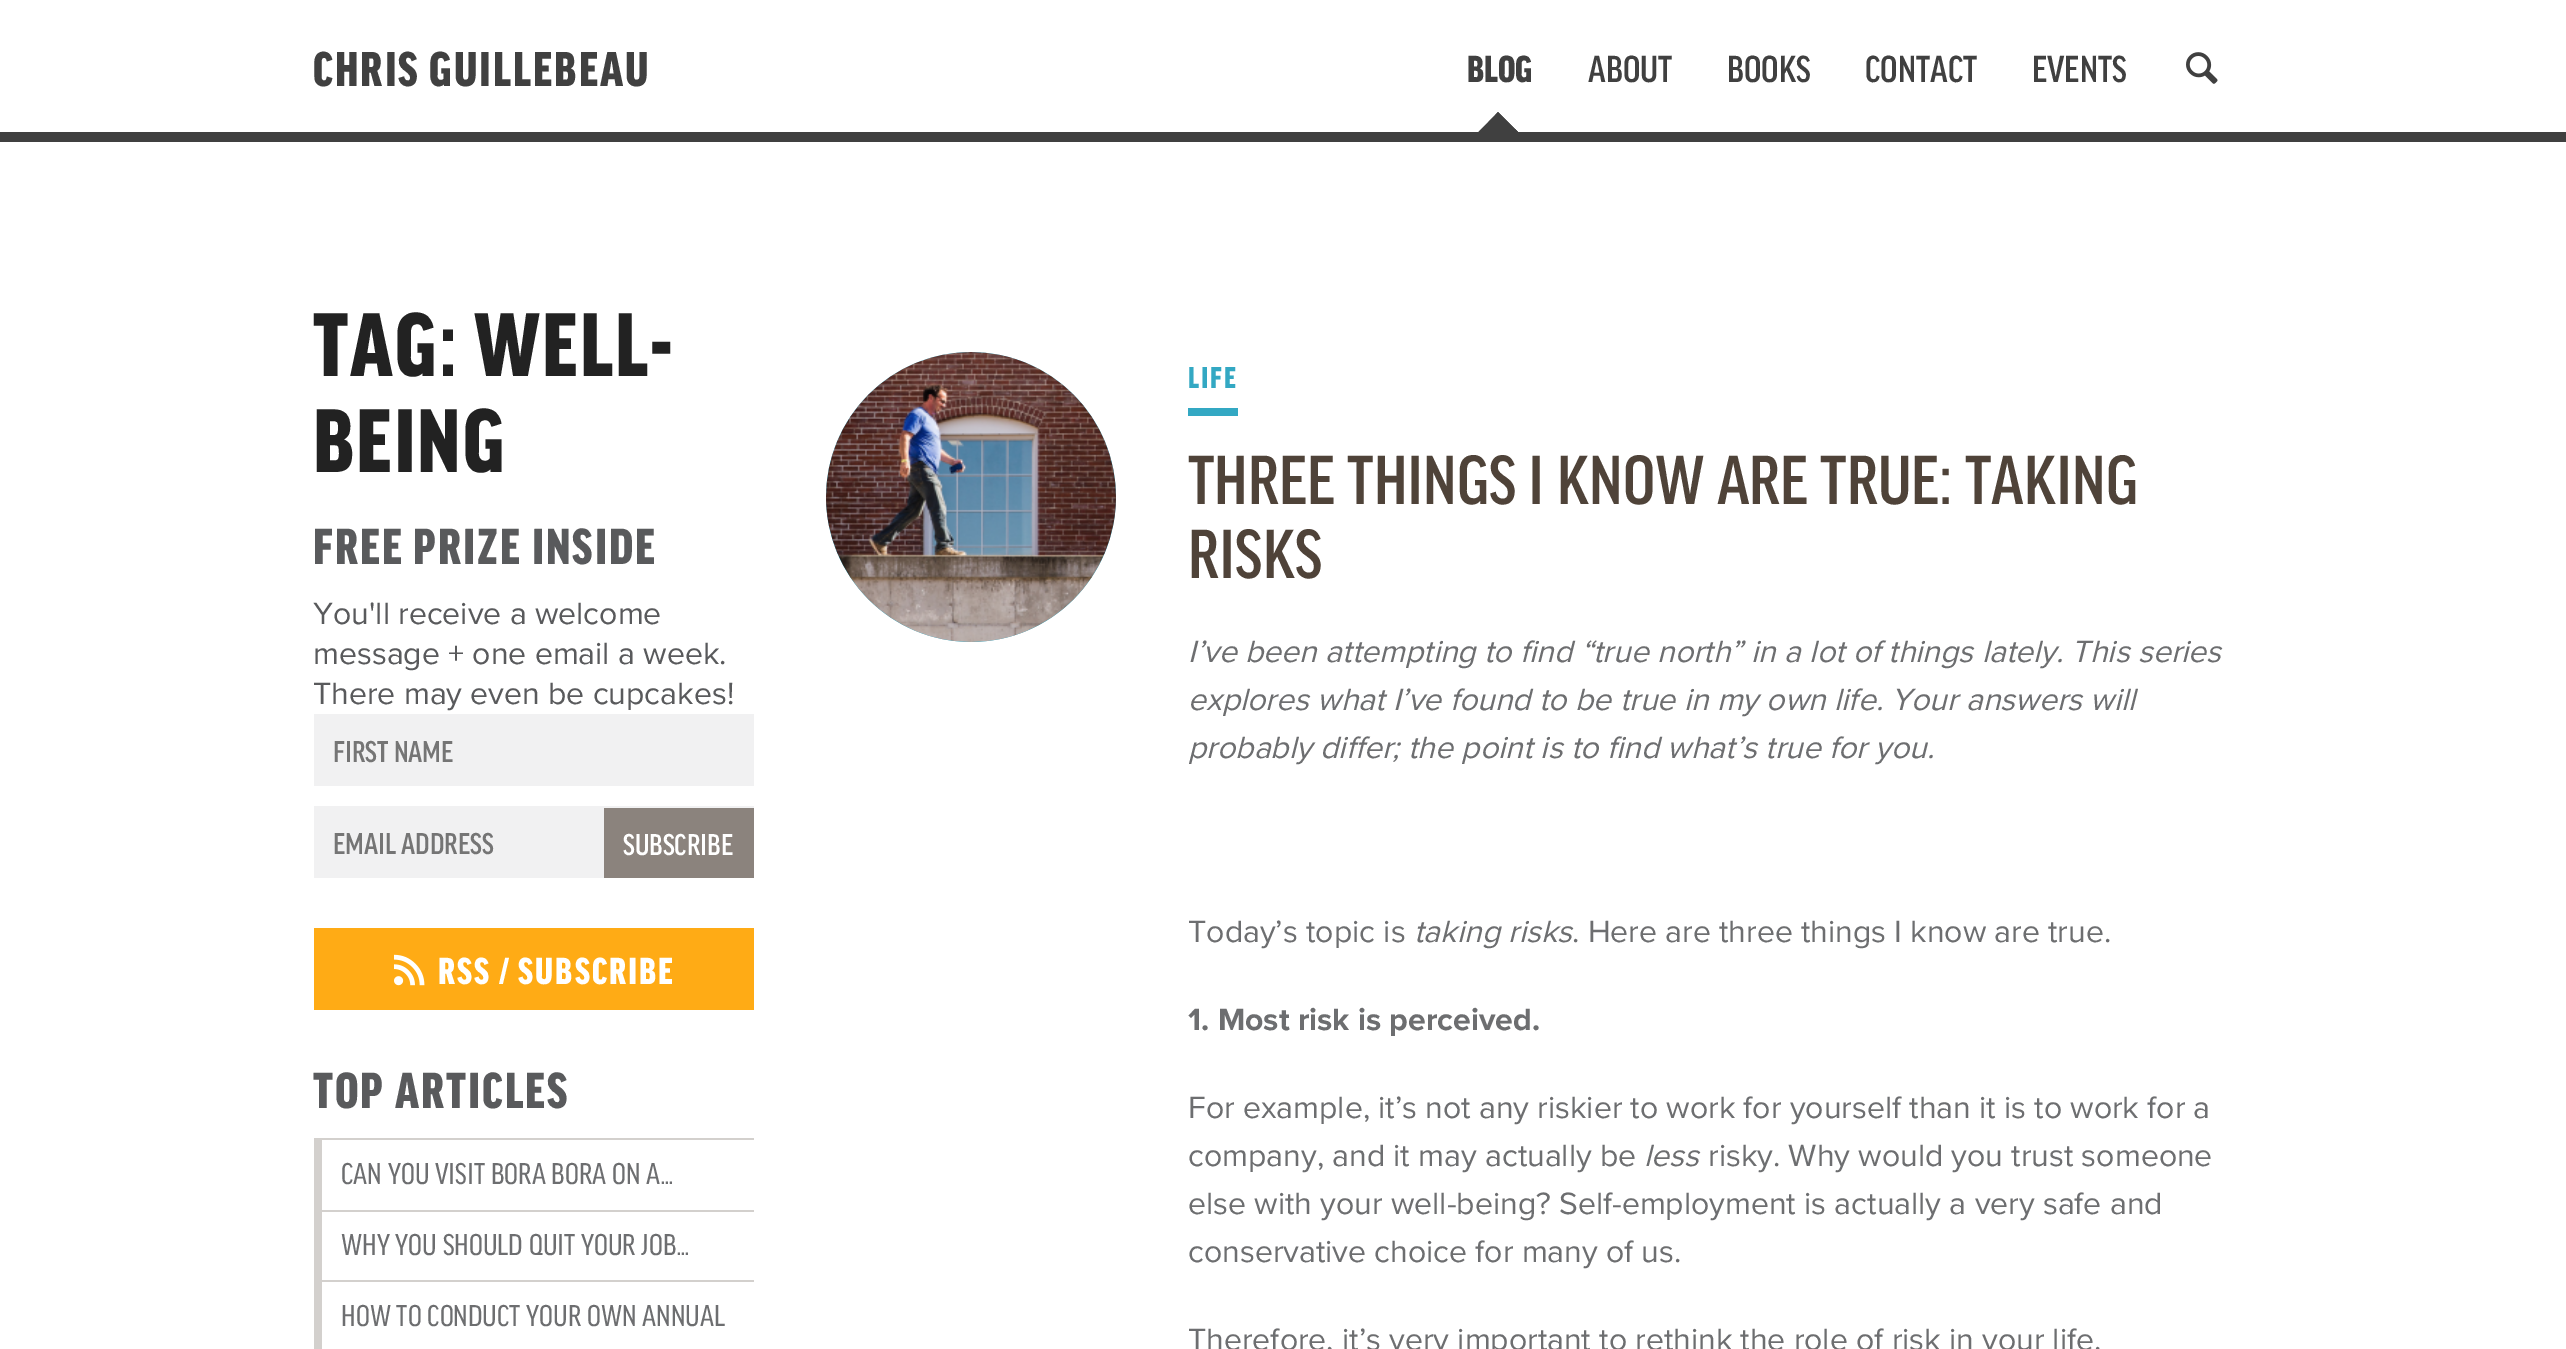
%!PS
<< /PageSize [2566 1349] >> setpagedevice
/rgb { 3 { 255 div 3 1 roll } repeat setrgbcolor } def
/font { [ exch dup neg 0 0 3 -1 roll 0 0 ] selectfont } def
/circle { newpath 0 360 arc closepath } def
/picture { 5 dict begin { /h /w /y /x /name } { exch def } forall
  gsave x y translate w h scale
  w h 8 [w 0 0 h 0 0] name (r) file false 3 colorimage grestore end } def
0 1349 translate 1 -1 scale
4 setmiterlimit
255 255 255 rgb
0 0 2566 1349 rectfill
64 64 64 rgb
0 132 2566 10 rectfill
gsave
0 0 2566 132 rectclip
1478.5 132 moveto 1498 112 lineto 1518 132 lineto 1498 152 lineto closepath fill
1495.5 115 moveto 1498 112 lineto 1518 132 lineto 1515 135 lineto closepath fill
1495.5 149 moveto 1515 129 lineto 1518 132 lineto 1498 152 lineto closepath fill
grestore
(img/1.rgb) 2186 52 32 32 picture
[
  [314 714 440 72 241 241 242]
  [314 806 440 72 241 241 242]
  [604 808 150 70 139 131 125]
  [314 928 440 82 255 171 21]
] { aload pop rgb rectfill } forall
(img/2.rgb) 394 954 31 32 picture
[
  [314 1138 440 2 211 208 205]
  [314 1210 440 2 211 208 205]
  [314 1140 8 70 211 208 205]
  [314 1280 440 2 211 208 205]
  [314 1212 8 68 211 208 205]
  [314 1282 8 67 211 208 205]
] { aload pop rgb rectfill } forall
gsave 971 497 145 circle clip newpath
<< /ShadingType 2 /ColorSpace /DeviceRGB /Coords [971 352 971 642] /Extend [true true] /Function << /FunctionType 2 /Domain [0 1] /C0 [0.447 0.851 0.949] /C1 [0.2 0.659 0.765] /N 1 >> >> shfill grestore
(img/3.rgb) 826 352 290 290 picture
51 168 195 rgb
1188 408 50 8 rectfill
/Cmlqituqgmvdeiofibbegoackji-Black 52 font
64 64 64 rgb
313 86 moveto 2 0 (CHRIS GUILLEBEAU) ashow
/Cmlqituqgmvdeiofibbegoackji-Black 40 font
1467 82 moveto (BLOG) show
/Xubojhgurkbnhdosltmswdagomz-Medium 40 font
[
  [(ABOUT) 1588 82]
  [(BOOKS) 1727 82]
  [(CONTACT) 1865 82]
  [(EVENTS) 2032 82]
] { aload pop moveto show } forall
/Cmlqituqgmvdeiofibbegoackji-Black 96 font
34 34 34 rgb
313 376 moveto 2 0 (TAG: WELL-) ashow
313 472 moveto 2 0 (BEING) ashow
/Cmlqituqgmvdeiofibbegoackji-Black 54 font
89 90 92 rgb
313 564 moveto 2 0 (FREE PRIZE INSIDE) ashow
/ProximaNova-Regular 32 font
[
  [(You'll receive a welcome) 313 624]
  [(message + one email a week.) 313 664]
  [(There may even be cupcakes!) 313 704]
] { aload pop moveto show } forall
/Xubojhgurkbnhdosltmswdagomz-Medium 32 font
117 117 117 rgb
333 762 moveto (FIRST NAME) show
333 854 moveto (EMAIL ADDRESS) show
255 255 255 rgb
623 855 moveto (SUBSCRIBE) show
/Cmlqituqgmvdeiofibbegoackji-Black 40 font
438 984 moveto 2 0 (RSS / SUBSCRIBE) ashow
/Cmlqituqgmvdeiofibbegoackji-Black 54 font
89 90 92 rgb
313 1108 moveto 2 0 (TOP ARTICLES) ashow
/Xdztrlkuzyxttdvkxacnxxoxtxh-Medium 32 font
109 110 112 rgb
[
  [(CAN YOU VISIT BORA BORA ON A…) 341 1184]
  [(WHY YOU SHOULD QUIT YOUR JOB…) 341 1255]
  [(HOW TO CONDUCT YOUR OWN ANNUAL) 341 1326]
] { aload pop moveto show } forall
/Cmlqituqgmvdeiofibbegoackji-Black 32 font
51 168 195 rgb
1188 388 moveto 2 0 (LIFE) ashow
/Xubojhgurkbnhdosltmswdagomz-Medium 74 font
79 67 57 rgb
1188 504 moveto (THREE THINGS I KNOW ARE TRUE: TAKING) show
1188 578 moveto (RISKS) show
/ProximaNova-Italic 32 font
109 110 112 rgb
[
  [(I’ve been attempting to find “true north” in a lot of things lately. This series) 1188 662]
  [(explores what I’ve found to be true in my own life. Your answers will) 1188 710]
  [(probably differ; the point is to find what’s true for you.) 1188 758]
] { aload pop moveto show } forall
/ProximaNova-Regular 32 font
1188 942 moveto (Today’s topic is) show
/ProximaNova-Italic 32 font
1414 942 moveto (taking risks) show
/ProximaNova-Regular 32 font
1572 942 moveto (. Here are three things I know are true.) show
/ProximaNova-Bold 32 font
1188 1030 moveto (1. Most risk is perceived.) show
/ProximaNova-Regular 32 font
1188 1118 moveto (For example, it’s not any riskier to work for yourself than it is to work for a) show
1188 1166 moveto (company, and it may actually be) show
/ProximaNova-Italic 32 font
1644 1166 moveto (less) show
/ProximaNova-Regular 32 font
[
  [(risky. Why would you trust someone) 1708 1166]
  [(else with your well-being? Self-employment is actually a very safe and) 1188 1214]
  [(conservative choice for many of us.) 1188 1262]
  [(Therefore, it’s very important to rethink the role of risk in your life.) 1188 1350]
] { aload pop moveto show } forall
showpage
